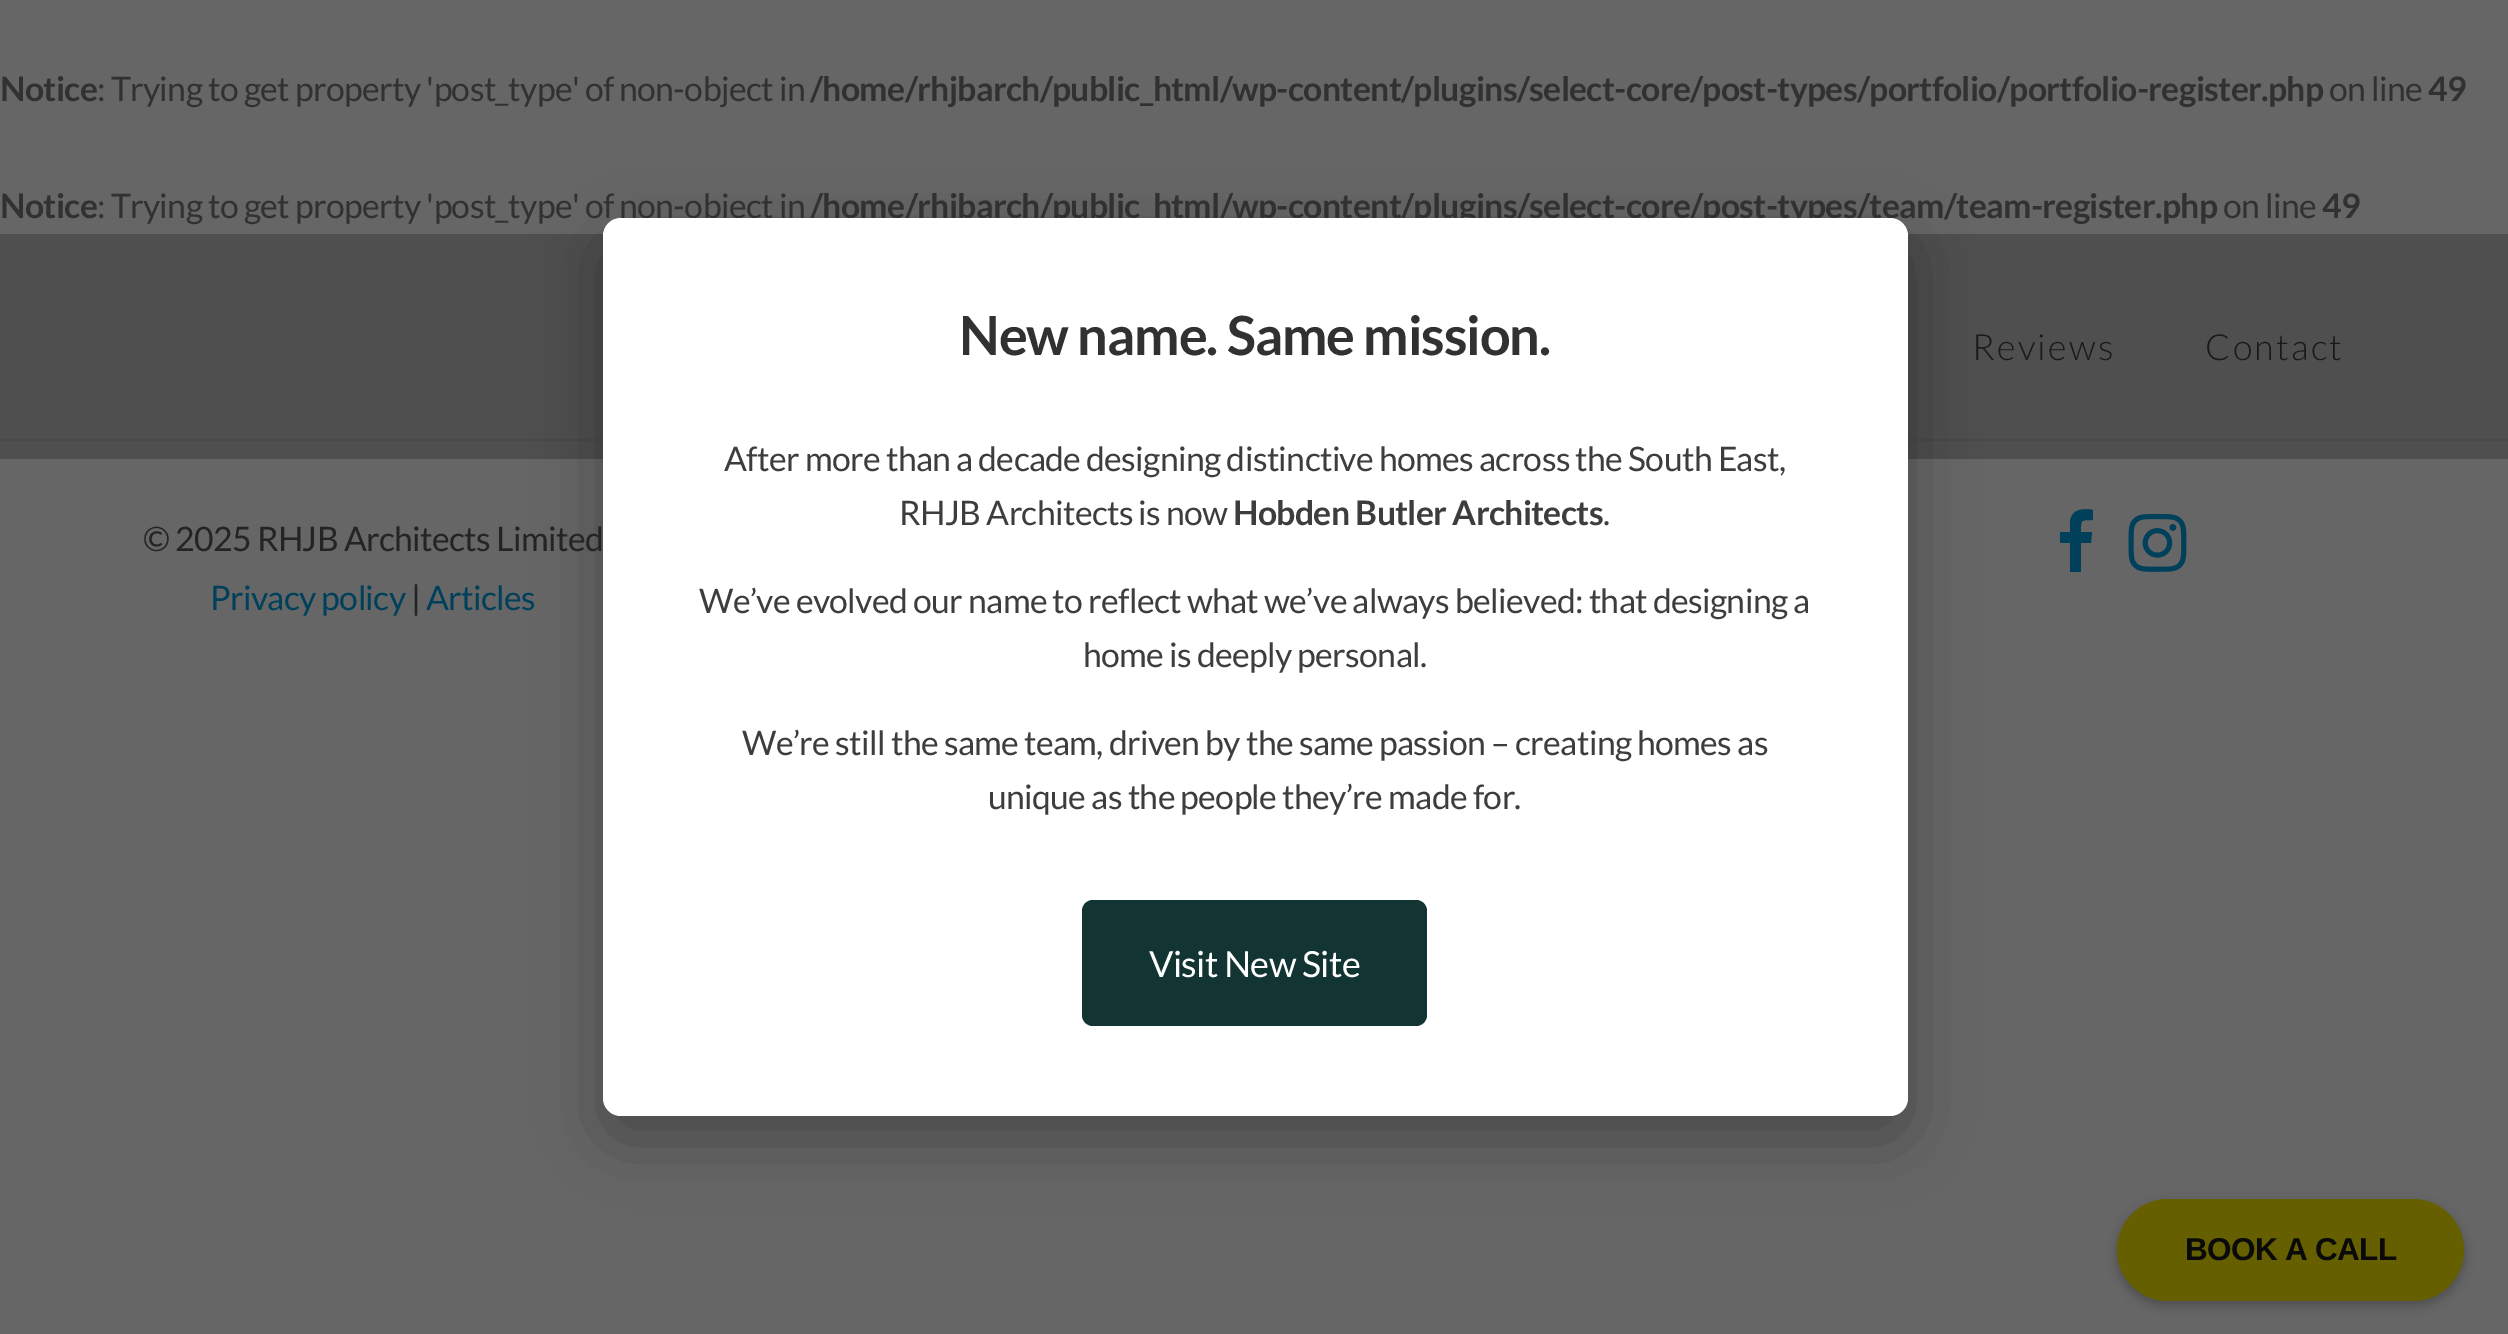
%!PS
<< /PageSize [2508 1334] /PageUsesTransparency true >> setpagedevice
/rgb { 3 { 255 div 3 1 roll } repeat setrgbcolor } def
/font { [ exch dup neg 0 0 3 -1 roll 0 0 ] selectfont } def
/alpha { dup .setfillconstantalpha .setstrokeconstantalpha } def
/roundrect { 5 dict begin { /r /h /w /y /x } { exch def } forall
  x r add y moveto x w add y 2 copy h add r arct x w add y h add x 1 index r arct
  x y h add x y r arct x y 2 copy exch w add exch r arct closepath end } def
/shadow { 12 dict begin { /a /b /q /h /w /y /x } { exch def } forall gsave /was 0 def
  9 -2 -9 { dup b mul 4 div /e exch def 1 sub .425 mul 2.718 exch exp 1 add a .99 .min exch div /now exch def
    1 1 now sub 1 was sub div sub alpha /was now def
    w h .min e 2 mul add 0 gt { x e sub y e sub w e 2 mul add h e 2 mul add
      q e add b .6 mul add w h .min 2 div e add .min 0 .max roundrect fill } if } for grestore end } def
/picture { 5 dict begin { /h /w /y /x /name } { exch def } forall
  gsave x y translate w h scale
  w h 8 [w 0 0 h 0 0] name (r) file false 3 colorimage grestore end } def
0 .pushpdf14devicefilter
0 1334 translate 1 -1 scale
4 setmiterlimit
102 102 102 rgb
0 0 2508 1334 rectfill
79 79 79 rgb
0 234 2508 225 rectfill
74 74 73 rgb
0 439 2508 2 rectfill
0 0 0 rgb
603 241 1305 898 18 34 0.3 shadow
0 64 91 rgb
2093 510 moveto 2083 508 2072 509 2070 521 curveto 2070 532 lineto 2060 532 lineto 2060 543 lineto 2070 543 lineto 2070 572 lineto 2081 572 lineto 2081 543 lineto 2091 543 lineto 2092 532 lineto 2081 532 lineto 2081 520 2080 520 2093 520 curveto closepath fill
(img/1.rgb) 2128 513 59 59 picture
0 0 0 rgb
2117 1204 347 101 50.5 5.5 0.25 shadow
102 95 0 rgb
2117 1199 347 102 51 roundrect fill
/Lato-Bold 33.75 font
49 49 49 rgb
0 101 moveto -0.67 0 (Notice) ashow
/Lato-Regular 33.75 font
97 101 moveto -0.67 0 (: Trying to get property 'post_type' of non-object in) ashow
/Lato-Bold 33.75 font
810 101 moveto -0.67 0 (/home/rhjbarch/public_html/wp-content/plugins/select-core/post-types/portfolio/portfolio-register.php) ashow
/Lato-Regular 33.75 font
2329 101 moveto -0.67 0 (on line) ashow
/Lato-Bold 33.75 font
2428 101 moveto -0.67 0 (49) ashow
0 218 moveto -0.67 0 (Notice) ashow
/Lato-Regular 33.75 font
97 218 moveto -0.67 0 (: Trying to get property 'post_type' of non-object in) ashow
/Lato-Bold 33.75 font
810 218 moveto -0.67 0 (/home/rhjbarch/public_html/wp-content/plugins/select-core/post-types/team/team-register.php) ashow
/Lato-Regular 33.75 font
2223 218 moveto -0.67 0 (on line) ashow
/Lato-Bold 33.75 font
2322 218 moveto -0.67 0 (49) ashow
255 255 255 rgb
603 218 1305 898 18 roundrect fill
/Lato-Bold 54 font
49 49 49 rgb
959 355 moveto -1.1 0 (New name. Same mission.) ashow
/Lato-Regular 33.75 font
61 61 61 rgb
724 471 moveto -0.67 0 (After more than a decade designing distinctive homes across the South East,) ashow
899 525 moveto -0.67 0 (RHJB Architects is now) ashow
/Lato-Bold 33.75 font
1233 525 moveto -0.67 0 (Hobden Butler Architects) ashow
/Lato-Regular 33.75 font
1603 525 moveto -0.67 0 (.) ashow
699 613 moveto -0.67 0 (We’ve evolved our name to reflect what we’ve always believed: that designing a) ashow
1083 667 moveto -0.67 0 (home is deeply personal.) ashow
742 755 moveto -0.67 0 (We’re still the same team, driven by the same passion – creating homes as) ashow
988 809 moveto -0.67 0 (unique as the people they’re made for.) ashow
18 53 51 rgb
1082 900 345 126 11 roundrect fill
/Lato-Regular 36 font
255 255 255 rgb
1149 977 moveto -0.67 0 (Visit New Site) ashow
/Lato-Light 36 font
24 25 24 rgb
1972 360 moveto 2.25 0 (Reviews) ashow
2205 360 moveto 2.25 0 (Contact) ashow
/Lato-Regular 33.75 font
36 36 36 rgb
143 551 moveto -0.67 0 (© 2025 RHJB Architects Limited) ashow
0 64 91 rgb
210 610 moveto -0.67 0 (Privacy policy) ashow
36 36 36 rgb
411 610 moveto -0.67 0 (|) ashow
0 64 91 rgb
426 610 moveto -0.67 0 (Articles) ashow
/LiberationSans-Bold 31.5 font
10 10 10 rgb
2185 1260 moveto -0.67 0 (BOOK A CALL) ashow
.poppdf14devicefilter showpage
